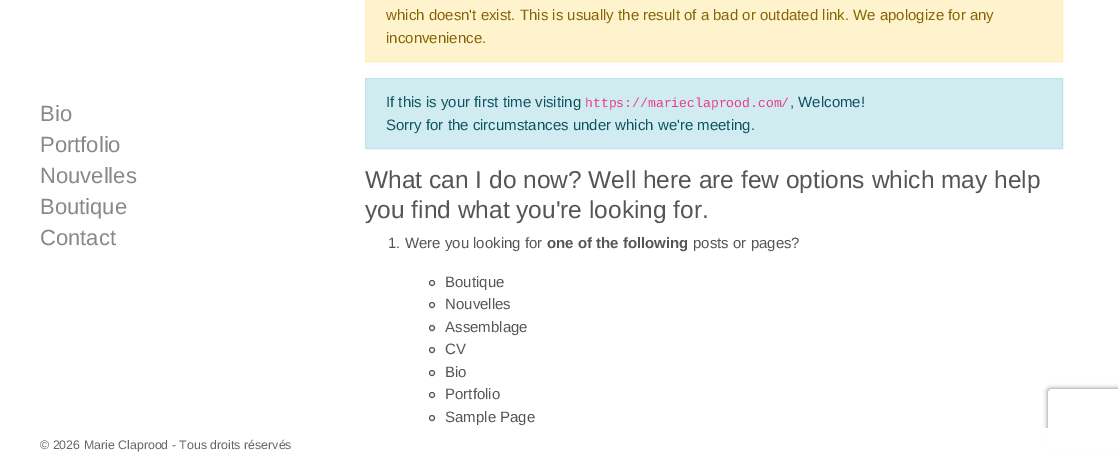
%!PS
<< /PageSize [1118 463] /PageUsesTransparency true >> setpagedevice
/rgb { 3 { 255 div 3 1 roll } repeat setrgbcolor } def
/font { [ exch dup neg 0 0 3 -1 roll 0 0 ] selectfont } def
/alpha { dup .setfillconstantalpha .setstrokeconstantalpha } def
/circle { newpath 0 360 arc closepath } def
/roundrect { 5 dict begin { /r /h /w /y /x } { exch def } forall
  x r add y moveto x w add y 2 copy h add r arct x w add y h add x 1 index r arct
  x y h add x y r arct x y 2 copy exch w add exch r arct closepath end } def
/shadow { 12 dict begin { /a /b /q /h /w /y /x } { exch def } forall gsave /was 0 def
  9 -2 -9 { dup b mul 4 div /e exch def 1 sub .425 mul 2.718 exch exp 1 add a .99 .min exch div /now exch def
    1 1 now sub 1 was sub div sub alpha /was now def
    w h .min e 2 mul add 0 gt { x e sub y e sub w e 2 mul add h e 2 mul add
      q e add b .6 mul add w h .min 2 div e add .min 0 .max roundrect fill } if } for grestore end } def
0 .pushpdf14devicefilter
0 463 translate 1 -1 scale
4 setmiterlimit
255 255 255 rgb
0 0 1118 463 rectfill
255 243 205 rgb
365.5 -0.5 moveto 1062.5 -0.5 lineto 1062.5 61.5 lineto 365.5 61.5 lineto closepath gsave fill grestore
255 238 186 rgb
stroke
209 236 241 rgb
365.5 78.5 moveto 1062.5 78.5 lineto 1062.5 148.5 lineto 365.5 148.5 lineto closepath gsave fill grestore
190 229 235 rgb
stroke
85 85 85 rgb
432 283 2.5 circle stroke
432 305 2.5 circle stroke
432 328 2.5 circle stroke
432 350 2.5 circle stroke
432 373 2.5 circle stroke
432 395 2.5 circle stroke
432 418 2.5 circle stroke
gsave
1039 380 moveto 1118 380 lineto 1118 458 lineto 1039 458 lineto closepath 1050 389 moveto 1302 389 lineto 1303 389 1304 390 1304 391 curveto 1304 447 lineto 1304 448 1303 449 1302 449 curveto 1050 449 lineto 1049 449 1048 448 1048 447 curveto 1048 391 lineto 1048 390 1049 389 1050 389 curveto closepath eoclip newpath
128 128 128 rgb
1048 389 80 60 2 2.5 1 shadow
grestore
255 255 255 rgb
1043 428 75 26 rectfill
/LiberationSans-Regular 22 font
136 136 136 rgb
[
  [(Bio) 40 121]
  [(Portfolio) 40 152]
  [(Nouvelles) 40 183]
  [(Boutique) 40 214]
  [(Contact) 40 245]
] { aload pop moveto show } forall
/LiberationSans-Regular 15 font
133 100 4 rgb
386 20 moveto (which doesn't exist. This is usually the result of a bad or outdated link. We apologize for any) show
386 43 moveto (inconvenience.) show
12 84 96 rgb
386 107 moveto (If this is your first time visiting) show
/LiberationMono-Regular 13.1 font
232 62 140 rgb
585 107 moveto (https://marieclaprood.com/) show
/LiberationSans-Regular 15 font
12 84 96 rgb
790 107 moveto (, Welcome!) show
386 130 moveto (Sorry for the circumstances under which we're meeting.) show
/LiberationSans-Regular 24.5 font
85 85 85 rgb
365 188 moveto (What can I do now? Well here are few options which may help) show
365 218 moveto (you find what you're looking for.) show
/LiberationSans-Regular 15 font
388 248 moveto (1. Were you looking for) show
/LiberationSans-Bold 15 font
547 248 moveto (one of the following) show
/LiberationSans-Regular 15 font
[
  [(posts or pages?) 693 248]
  [(Boutique) 445 287]
  [(Nouvelles) 445 309]
  [(Assemblage) 445 332]
  [(CV) 445 354]
  [(Bio) 445 377]
  [(Portfolio) 445 399]
  [(Sample Page) 445 422]
] { aload pop moveto show } forall
/LiberationSans-Regular 12.4 font
102 102 102 rgb
40 449 moveto (© 2026 Marie Claprood - Tous droits réservés) show
.poppdf14devicefilter showpage
